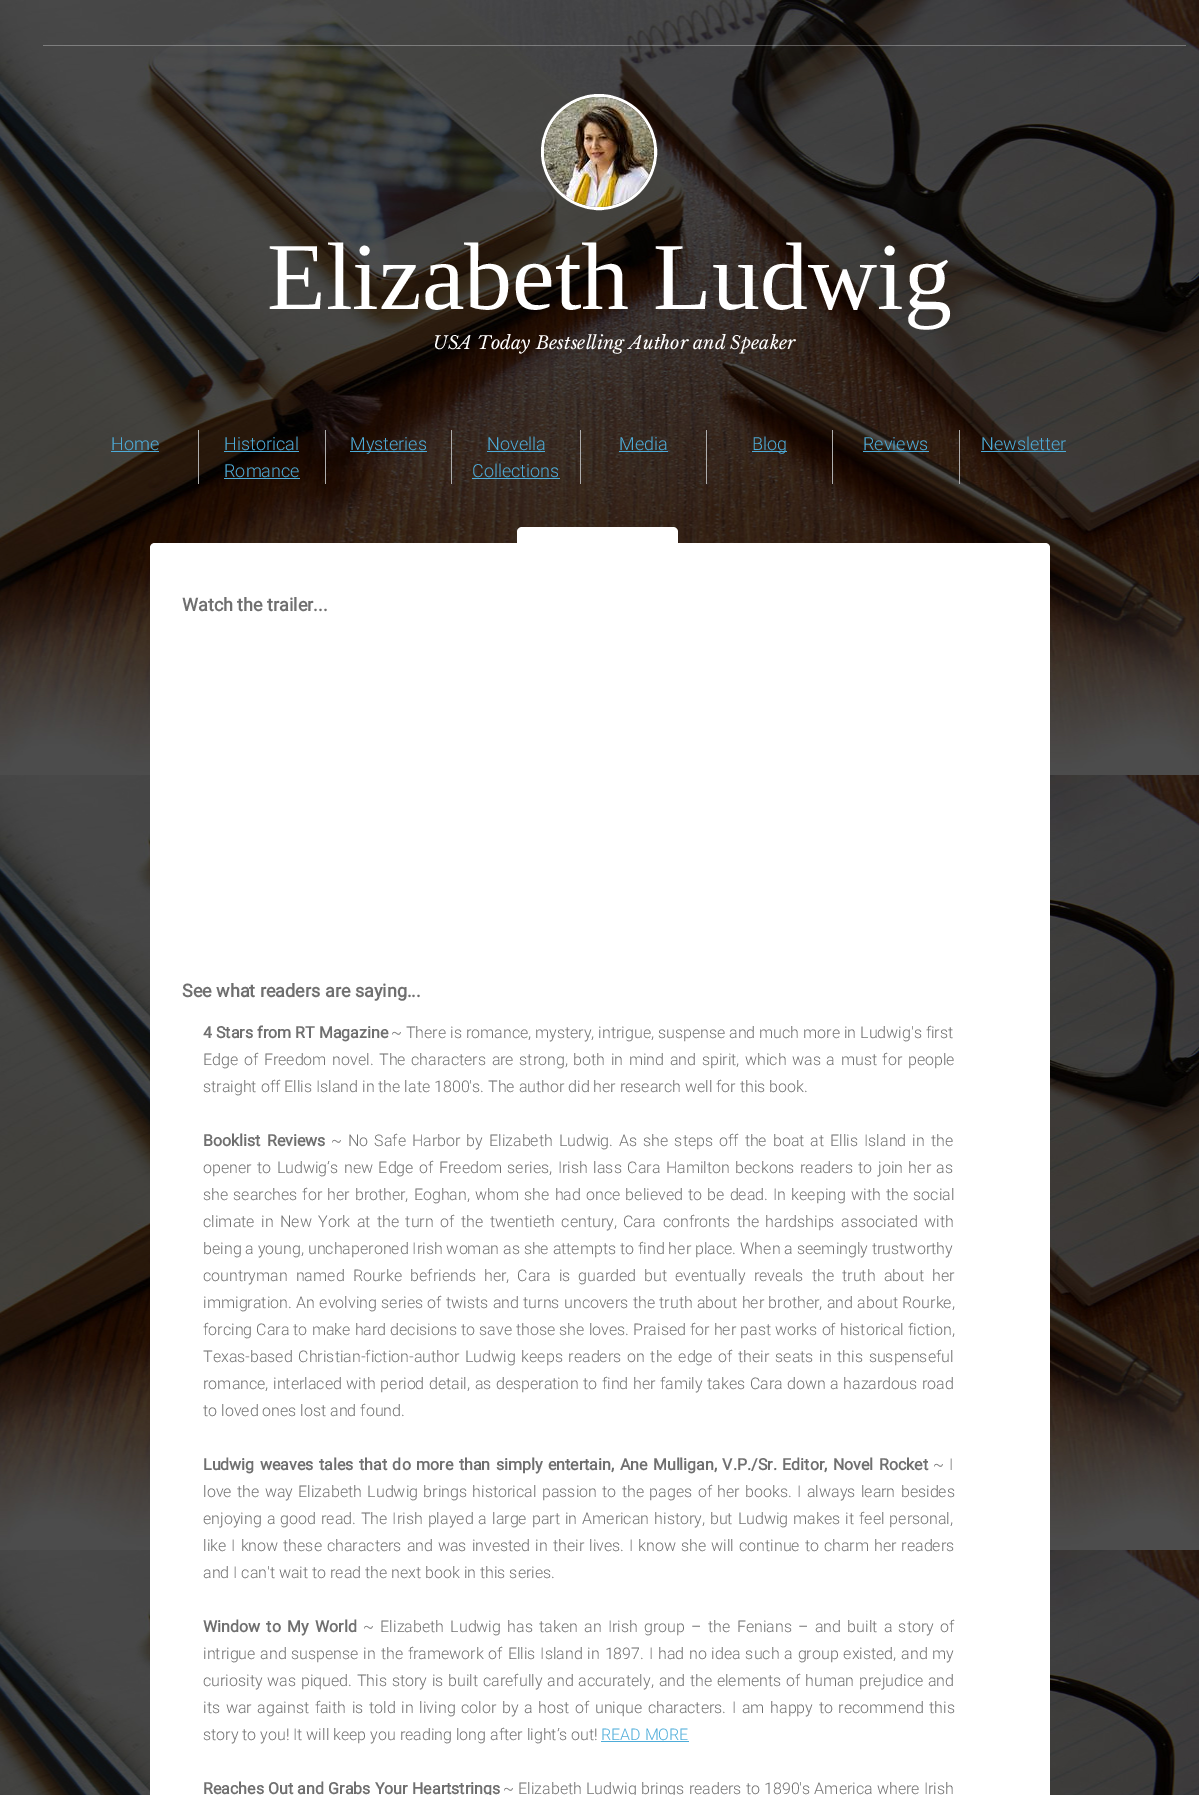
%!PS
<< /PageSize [1199 1795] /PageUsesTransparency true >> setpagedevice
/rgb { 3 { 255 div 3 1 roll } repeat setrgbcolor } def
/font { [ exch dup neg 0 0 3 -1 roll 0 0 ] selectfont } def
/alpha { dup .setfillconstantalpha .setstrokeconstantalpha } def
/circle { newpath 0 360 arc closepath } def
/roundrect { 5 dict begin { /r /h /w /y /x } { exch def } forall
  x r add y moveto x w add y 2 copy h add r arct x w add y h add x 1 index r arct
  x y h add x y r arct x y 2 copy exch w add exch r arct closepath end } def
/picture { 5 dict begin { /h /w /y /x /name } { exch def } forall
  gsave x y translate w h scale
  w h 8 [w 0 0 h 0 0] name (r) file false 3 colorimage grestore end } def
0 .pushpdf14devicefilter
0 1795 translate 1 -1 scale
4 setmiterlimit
255 255 255 rgb
0 0 1199 1795 rectfill
(img/1.rgb) 0 0 1199 1795 picture
155 543 moveto 1045 543 lineto 1048 543 1050 545 1050 548 curveto 1050 1795 lineto 150 1795 lineto 150 548 lineto 150 545 152 543 155 543 curveto closepath fill
0.3 alpha
43 45 1143 1 rectfill
1 alpha
3 setlinewidth
599 152 56.5 circle stroke
(img/2.rgb) 544 97 110 110 picture
[
  [198 430 1 54 174 174 174]
  [111 451 48 1 77 172 217]
  [325 430 1 54 174 174 174]
  [224 451 75 1 77 172 217]
  [224 478 76 1 77 172 217]
  [451 430 1 54 174 174 174]
  [350 451 77 1 77 172 217]
  [580 430 1 54 174 174 174]
  [487 451 58 1 77 172 217]
  [472 478 88 1 77 172 217]
  [706 430 1 54 174 174 174]
  [619 451 49 1 77 172 217]
  [832 430 1 54 174 174 174]
  [752 451 35 1 77 172 217]
  [959 430 1 54 174 174 174]
  [863 451 66 1 77 172 217]
  [981 451 85 1 77 172 217]
] { aload pop rgb rectfill } forall
255 255 255 rgb
517 527 161 53 5 roundrect fill
77 172 217 rgb
601 1741 88 1 rectfill
/LiberationSerif-Regular 96 font
255 255 255 rgb
267 309 moveto (Elizabeth Ludwig) show
/LibreBaskerville-Italic 18 font
433 349 moveto (USA Today Bestselling Author and Speaker) show
/Roboto-Light 18 font
77 172 217 rgb
[
  [(Home) 111 450]
  [(Historical) 224 450]
  [(Romance) 224 477]
  [(Mysteries) 350 450]
  [(Novella) 487 450]
  [(Collections) 472 477]
  [(Media) 619 450]
  [(Blog) 752 450]
  [(Reviews) 863 450]
  [(Newsletter) 981 450]
] { aload pop moveto show } forall
/Roboto-Bold 18 font
111 111 111 rgb
182 611 moveto (Watch the trailer...) show
182 997 moveto (See what readers are saying...) show
/Roboto-Bold 16 font
203 1038 moveto (4 Stars from RT Magazine) show
/Roboto-Light 16 font
391 1038 moveto (~ There is romance, mystery, intrigue, suspense and much more in Ludwig's first) show
203 1065 moveto 1.7 0 32 (Edge of Freedom novel. The characters are strong, both in mind and spirit, which was a must for people) widthshow
203 1092 moveto (straight off Ellis Island in the late 1800's. The author did her research well for this book.) show
/Roboto-Bold 16 font
203 1146 moveto 2.1 0 32 (Booklist Reviews) widthshow
/Roboto-Light 16 font
331 1146 moveto 2.1 0 32 (~ No Safe Harbor by Elizabeth Ludwig. As she steps off the boat at Ellis Island in the) widthshow
203 1173 moveto 1.6 0 32 (opener to Ludwig’s new Edge of Freedom series, Irish lass Cara Hamilton beckons readers to join her as) widthshow
203 1200 moveto 1.25 0 32 (she searches for her brother, Eoghan, whom she had once believed to be dead. In keeping with the social) widthshow
203 1227 moveto 2.6 0 32 (climate in New York at the turn of the twentieth century, Cara confronts the hardships associated with) widthshow
203 1254 moveto (being a young, unchaperoned Irish woman as she attempts to find her place. When a seemingly trustworthy) show
203 1281 moveto 4.25 0 32 (countryman named Rourke befriends her, Cara is guarded but eventually reveals the truth about her) widthshow
203 1308 moveto 0.5 0 32 (immigration. An evolving series of twists and turns uncovers the truth about her brother, and about Rourke,) widthshow
203 1335 moveto 0.2 0 32 (forcing Cara to make hard decisions to save those she loves. Praised for her past works of historical fiction,) widthshow
203 1362 moveto 1.8 0 32 (Texas-based Christian-fiction-author Ludwig keeps readers on the edge of their seats in this suspenseful) widthshow
203 1389 moveto 0.6 0 32 (romance, interlaced with period detail, as desperation to find her family takes Cara down a hazardous road) widthshow
203 1416 moveto (to loved ones lost and found.) show
/Roboto-Bold 16 font
203 1470 moveto 1.5 0 32 (Ludwig weaves tales that do more than simply entertain, Ane Mulligan, V.P./Sr. Editor, Novel Rocket) widthshow
/Roboto-Light 16 font
933 1470 moveto 1.5 0 32 (~ I) widthshow
203 1497 moveto 1.5 0 32 (love the way Elizabeth Ludwig brings historical passion to the pages of her books. I always learn besides) widthshow
203 1524 moveto 1.1 0 32 (enjoying a good read. The Irish played a large part in American history, but Ludwig makes it feel personal,) widthshow
203 1551 moveto 1.1 0 32 (like I know these characters and was invested in their lives. I know she will continue to charm her readers) widthshow
203 1578 moveto (and I can't wait to read the next book in this series.) show
/Roboto-Bold 16 font
203 1632 moveto 2.4 0 32 (Window to My World) widthshow
/Roboto-Light 16 font
363 1632 moveto 2.4 0 32 (~ Elizabeth Ludwig has taken an Irish group – the Fenians – and built a story of) widthshow
203 1659 moveto 0.9 0 32 (intrigue and suspense in the framework of Ellis Island in 1897. I had no idea such a group existed, and my) widthshow
203 1686 moveto 0.9 0 32 (curiosity was piqued. This story is built carefully and accurately, and the elements of human prejudice and) widthshow
203 1713 moveto 1.75 0 32 (its war against faith is told in living color by a host of unique characters. I am happy to recommend this) widthshow
203 1740 moveto (story to you! It will keep you reading long after light’s out!) show
77 172 217 rgb
601 1740 moveto (READ MORE) show
/Roboto-Bold 16 font
111 111 111 rgb
203 1794 moveto 0.25 0 32 (Reaches Out and Grabs Your Heartstrings) widthshow
/Roboto-Light 16 font
503 1794 moveto 0.25 0 32 (~ Elizabeth Ludwig brings readers to 1890's America where Irish) widthshow
.poppdf14devicefilter showpage
